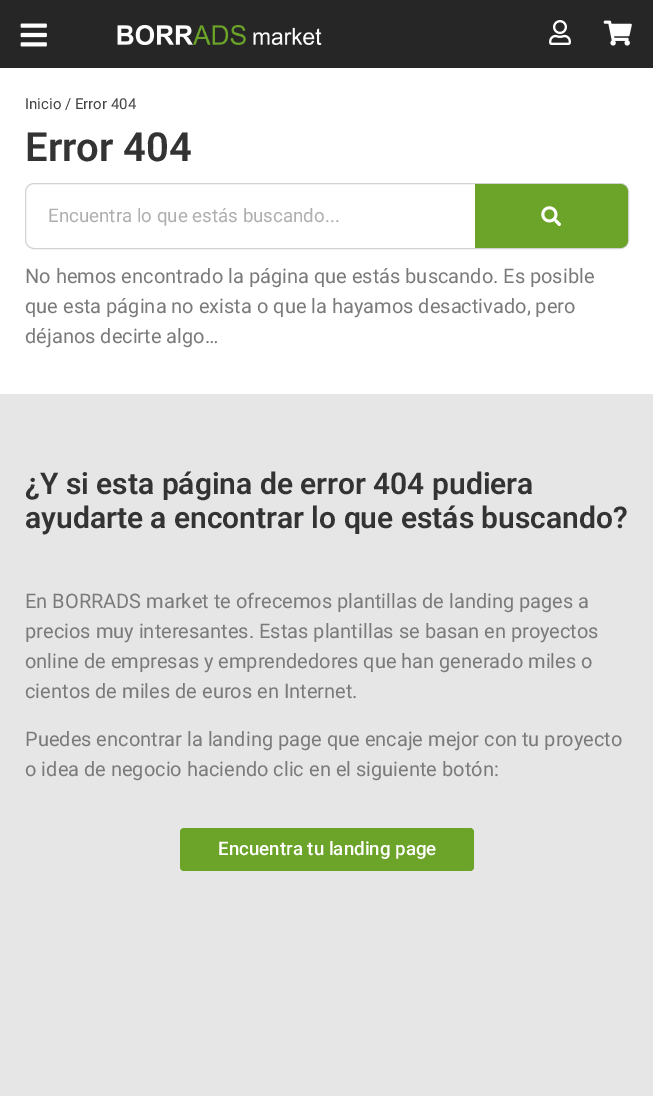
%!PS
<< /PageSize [653 1096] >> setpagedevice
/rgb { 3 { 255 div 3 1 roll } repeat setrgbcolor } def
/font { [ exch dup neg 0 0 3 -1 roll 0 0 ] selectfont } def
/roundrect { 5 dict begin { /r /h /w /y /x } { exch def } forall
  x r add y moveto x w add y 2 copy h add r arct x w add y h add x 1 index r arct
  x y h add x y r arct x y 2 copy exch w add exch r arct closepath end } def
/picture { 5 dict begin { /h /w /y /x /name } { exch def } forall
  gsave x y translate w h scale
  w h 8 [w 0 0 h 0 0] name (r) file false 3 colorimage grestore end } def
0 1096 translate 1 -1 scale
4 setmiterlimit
230 230 230 rgb
0 0 653 1096 rectfill
38 38 38 rgb
0 0 653 68 rectfill
(img/1.rgb) 20 23 27 24 picture
(img/2.rgb) 117 25 205 20 picture
(img/3.rgb) 549 20 22 25 picture
(img/4.rgb) 603 20 29 26 picture
255 255 255 rgb
0 68 653 326 rectfill
211 211 211 rgb
25.5 183.5 603 65 8.5 roundrect stroke
108 163 41 rgb
475 184 moveto 620 184 lineto 624.5 184 628 187.5 628 192 curveto 628 240 lineto 628 244.5 624.5 248 620 248 curveto 475 248 lineto closepath fill
(img/5.rgb) 541 206 20 20 picture
180 828 294 43 4 roundrect fill
/Roboto-Regular 15 font
68 68 68 rgb
25 109 moveto (Inicio / Error 404) show
/Roboto-SemiBold 40 font
51 51 51 rgb
25 161 moveto (Error 404) show
/Roboto-Regular 18.75 font
175 175 175 rgb
48 222 moveto (Encuentra lo que estás buscando...) show
/Roboto-Regular 20 font
122 122 122 rgb
[
  [(No hemos encontrado la página que estás buscando. Es posible) 25 283]
  [(que esta página no exista o que la hayamos desactivado, pero) 25 313]
  [(déjanos decirte algo…) 25 343]
] { aload pop moveto show } forall
/Roboto-SemiBold 30 font
51 51 51 rgb
25 494 moveto (¿Y si esta página de error 404 pudiera) show
25 528 moveto (ayudarte a encontrar lo que estás buscando?) show
/Roboto-Regular 20 font
122 122 122 rgb
[
  [(En BORRADS market te ofrecemos plantillas de landing pages a) 25 608]
  [(precios muy interesantes. Estas plantillas se basan en proyectos) 25 638]
  [(online de empresas y emprendedores que han generado miles o) 25 668]
  [(cientos de miles de euros en Internet.) 25 698]
  [(Puedes encontrar la landing page que encaje mejor con tu proyecto) 25 746]
  [(o idea de negocio haciendo clic en el siguiente botón:) 25 776]
] { aload pop moveto show } forall
/Roboto-Medium 18.75 font
255 255 255 rgb
218 855 moveto (Encuentra tu landing page) show
showpage
